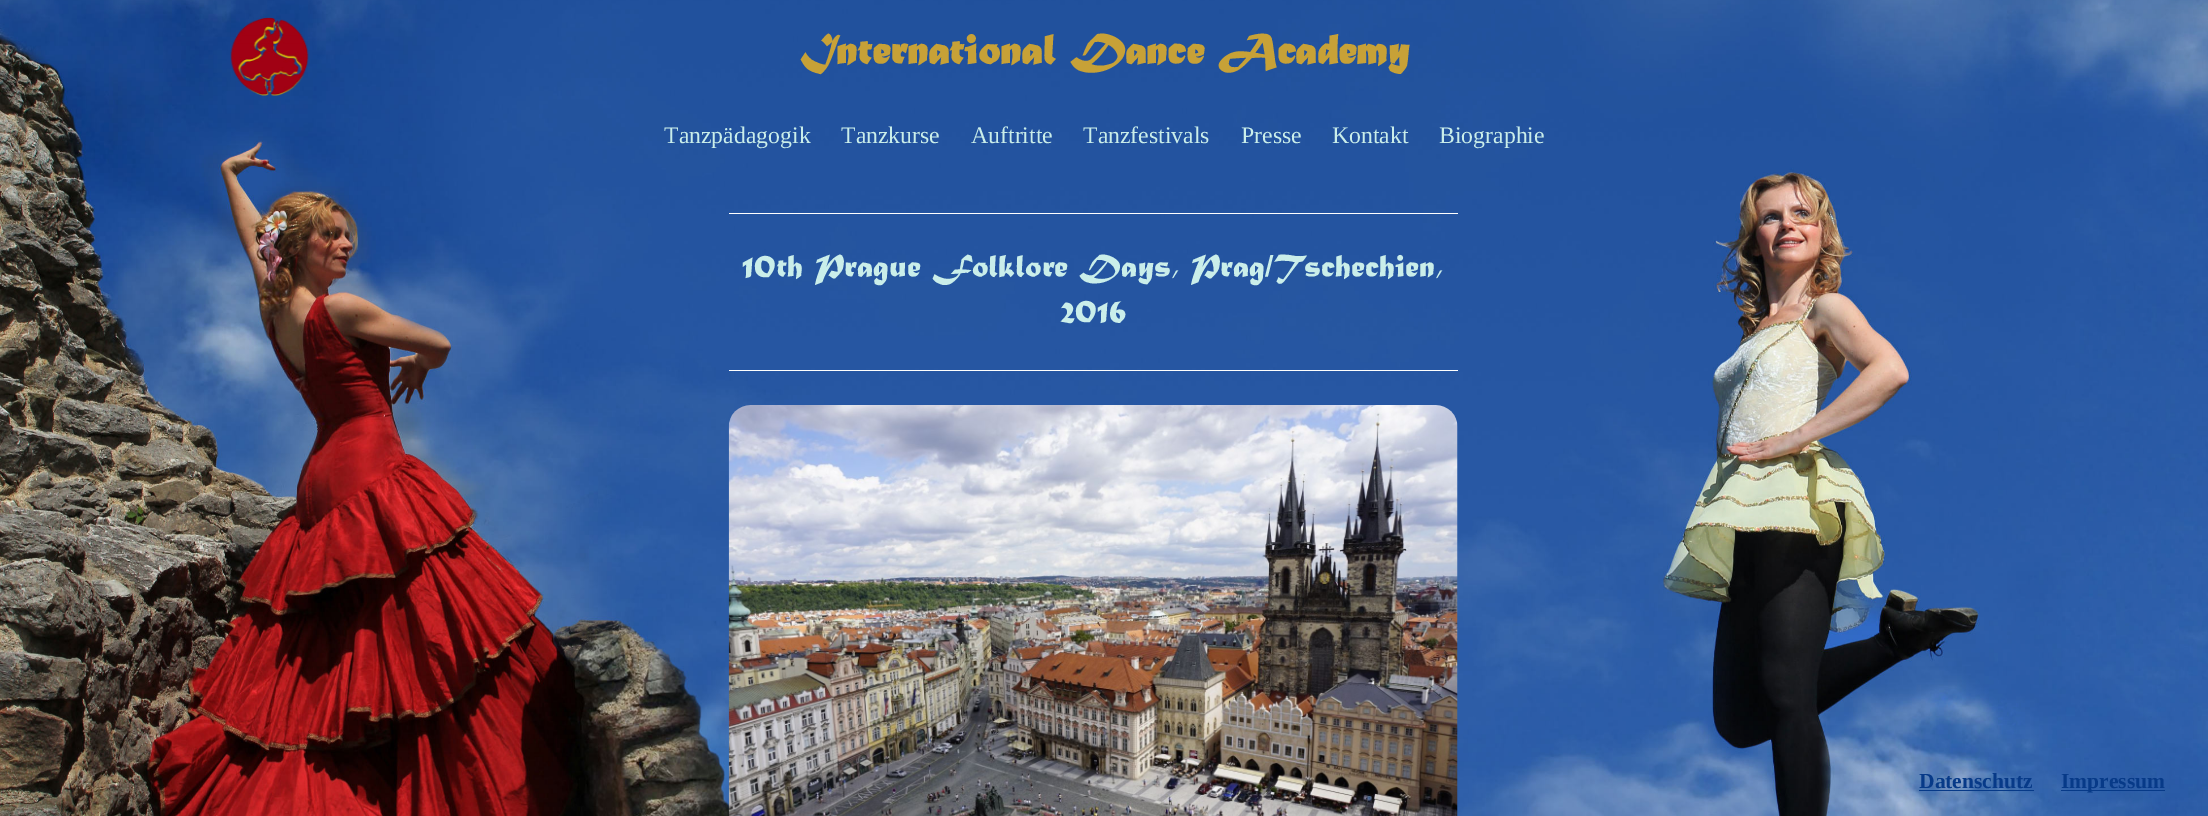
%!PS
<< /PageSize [2208 816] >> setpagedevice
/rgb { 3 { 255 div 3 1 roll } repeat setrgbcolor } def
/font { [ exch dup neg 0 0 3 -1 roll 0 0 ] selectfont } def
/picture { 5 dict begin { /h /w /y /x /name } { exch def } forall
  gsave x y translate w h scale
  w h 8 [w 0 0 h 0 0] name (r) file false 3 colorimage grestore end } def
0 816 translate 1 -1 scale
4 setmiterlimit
255 255 255 rgb
0 0 2208 816 rectfill
(img/1.rgb) 0 0 2208 816 picture
(img/2.rgb) 230 17 79 79 picture
729 213 729 1 rectfill
729 370 729 1 rectfill
(img/3.rgb) 728 405 730 411 picture
7 58 136 rgb
1919 790 115 1 rectfill
2061 790 104 1 rectfill
/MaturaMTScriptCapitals-Bold 43.75 font
199 161 55 rgb
800 63 moveto (International Dance Academy) show
/LiberationSerif-Regular 23.75 font
202 238 234 rgb
[
  [(Tanzpädagogik) 664 143]
  [(Tanzkurse) 841 143]
  [(Auftritte) 971 143]
  [(Tanzfestivals) 1083 143]
  [(Presse) 1241 143]
  [(Kontakt) 1332 143]
  [(Biographie) 1439 143]
] { aload pop moveto show } forall
/MaturaMTScriptCapitals-Regular 33.3 font
742 276 moveto (10th Prague Folklore Days, Prag/Tschechien,) show
1060 321 moveto (2016) show
/LiberationSerif-Bold 21.5 font
7 58 136 rgb
1919 788 moveto (Datenschutz) show
2061 788 moveto (Impressum) show
showpage
